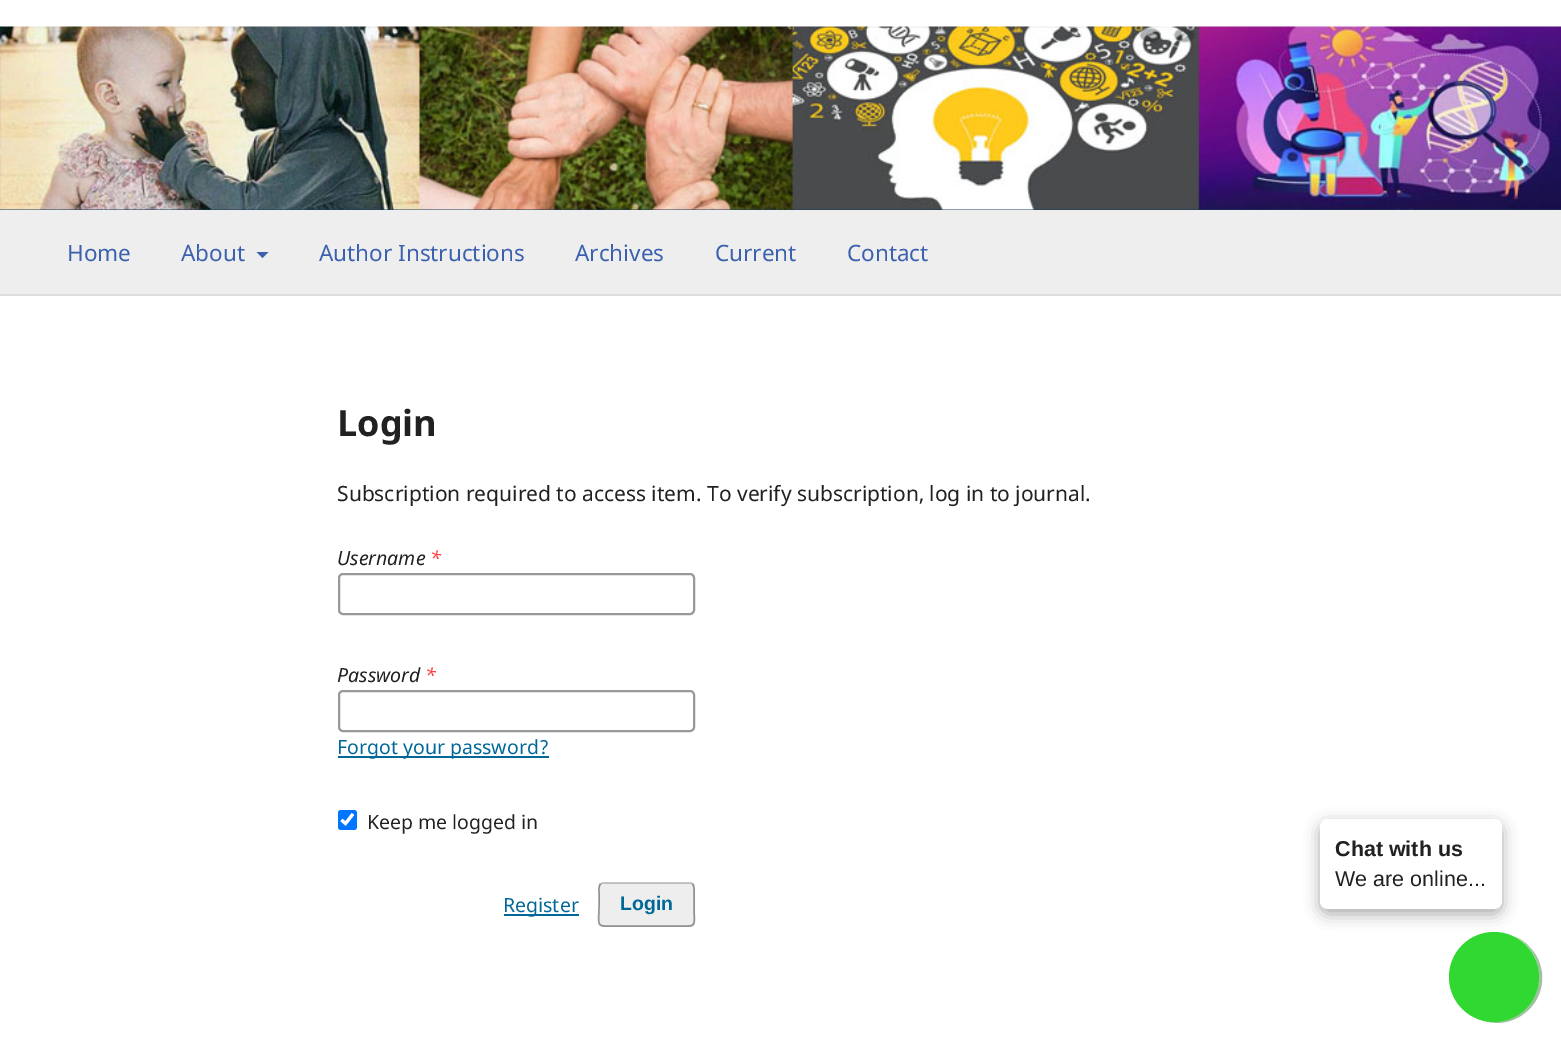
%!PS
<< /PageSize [1561 1044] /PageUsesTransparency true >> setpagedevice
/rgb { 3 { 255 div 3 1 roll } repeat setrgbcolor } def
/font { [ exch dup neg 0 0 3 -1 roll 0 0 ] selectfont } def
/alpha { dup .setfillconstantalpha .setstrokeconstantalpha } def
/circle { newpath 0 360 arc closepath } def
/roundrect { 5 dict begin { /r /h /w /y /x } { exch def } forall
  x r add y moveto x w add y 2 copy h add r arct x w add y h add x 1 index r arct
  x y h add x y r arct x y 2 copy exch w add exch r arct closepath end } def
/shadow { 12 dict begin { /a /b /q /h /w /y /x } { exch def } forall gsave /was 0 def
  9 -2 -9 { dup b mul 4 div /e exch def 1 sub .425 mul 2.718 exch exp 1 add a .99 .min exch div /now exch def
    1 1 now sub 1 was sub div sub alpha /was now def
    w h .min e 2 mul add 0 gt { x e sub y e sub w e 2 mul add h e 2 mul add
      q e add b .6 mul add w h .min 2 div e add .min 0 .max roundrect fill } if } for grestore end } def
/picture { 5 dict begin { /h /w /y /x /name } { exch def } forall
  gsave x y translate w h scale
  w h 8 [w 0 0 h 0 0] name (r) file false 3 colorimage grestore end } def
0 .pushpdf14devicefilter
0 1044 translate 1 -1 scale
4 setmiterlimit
255 255 255 rgb
0 0 1561 1044 rectfill
221 221 221 rgb
0 294 1561 2 rectfill
20 60 98 rgb
0 209 1561 1 rectfill
(img/1.rgb) 0 26 1561 184 picture
238 238 238 rgb
0 210 1561 84 rectfill
59 96 174 rgb
256.5 252 moveto 268.5 252 lineto 262.5 258 lineto closepath fill
153 153 153 rgb
2 setlinewidth
339 574 355 40 4 roundrect stroke
339 691 355 40 4 roundrect stroke
0 103 152 rgb
338 756 211 2 rectfill
0 117 255 rgb
338 810 19 20 3 roundrect fill
255 255 255 rgb
3.1 setlinewidth
341.5 820 moveto 345.5 823.5 lineto 353 814 lineto stroke
0 103 152 rgb
504 914 75 2 rectfill
238 238 238 rgb
599 882 96 45 5 roundrect fill
187 187 187 rgb
1.5 setlinewidth
600.5 884 moveto 602.5 883 lineto 690.5 883 lineto 692.5 884 lineto stroke
0.4 alpha
0 0 0 rgb
692.5 884 moveto 694.5 886 694 890.5 694 892.5 curveto 694 904.5 lineto 694 929 698.5 926 675.5 926 curveto 617.5 926 lineto 594.5 926 599 929 599 904.5 curveto 599 892.5 lineto 599 890.5 598.5 886 600.5 884 curveto stroke
1 alpha
1320 824 182 90 8 7.5 0.34 shadow
255 255 255 rgb
1320 819 182 90 8 roundrect fill
161 194 161 rgb
1475 1017 moveto 1513 1038 1556 999 1538 959 curveto 1533 949 1525 941 1516 937 curveto 1552 957 1544 1012 1503 1021 curveto 1494 1022 1484 1021 1475 1017 curveto closepath fill
49 216 49 rgb
1494 977 45 circle fill
/NotoSans-Regular 22.5 font
59 96 174 rgb
[
  [(Home) 67 261]
  [(About) 181 261]
  [(Author Instructions) 319 261]
  [(Archives) 575 261]
  [(Current) 715 261]
  [(Contact) 847 261]
] { aload pop moveto show } forall
/NotoSans-Bold 36 font
33 33 33 rgb
337 436 moveto (Login) show
/NotoSans-Regular 21 font
337 501 moveto (Subscription required to access item. To verify subscription, log in to journal.) show
/NotoSans-Italic 19.5 font
337 565 moveto (Username) show
255 64 64 rgb
430 565 moveto (*) show
33 33 33 rgb
337 682 moveto (Password) show
255 64 64 rgb
425 682 moveto (*) show
/NotoSans-Regular 19.5 font
0 103 152 rgb
337 754 moveto (Forgot your password?) show
33 33 33 rgb
367 829 moveto (Keep me logged in) show
0 103 152 rgb
503 912 moveto (Register) show
/LiberationSans-Bold 19.5 font
620 910 moveto (Login) show
/LiberationSans-Bold 21.5 font
33 33 33 rgb
1335 856 moveto (Chat with us) show
/LiberationSans-Regular 21.5 font
1335 886 moveto (We are online...) show
.poppdf14devicefilter showpage
